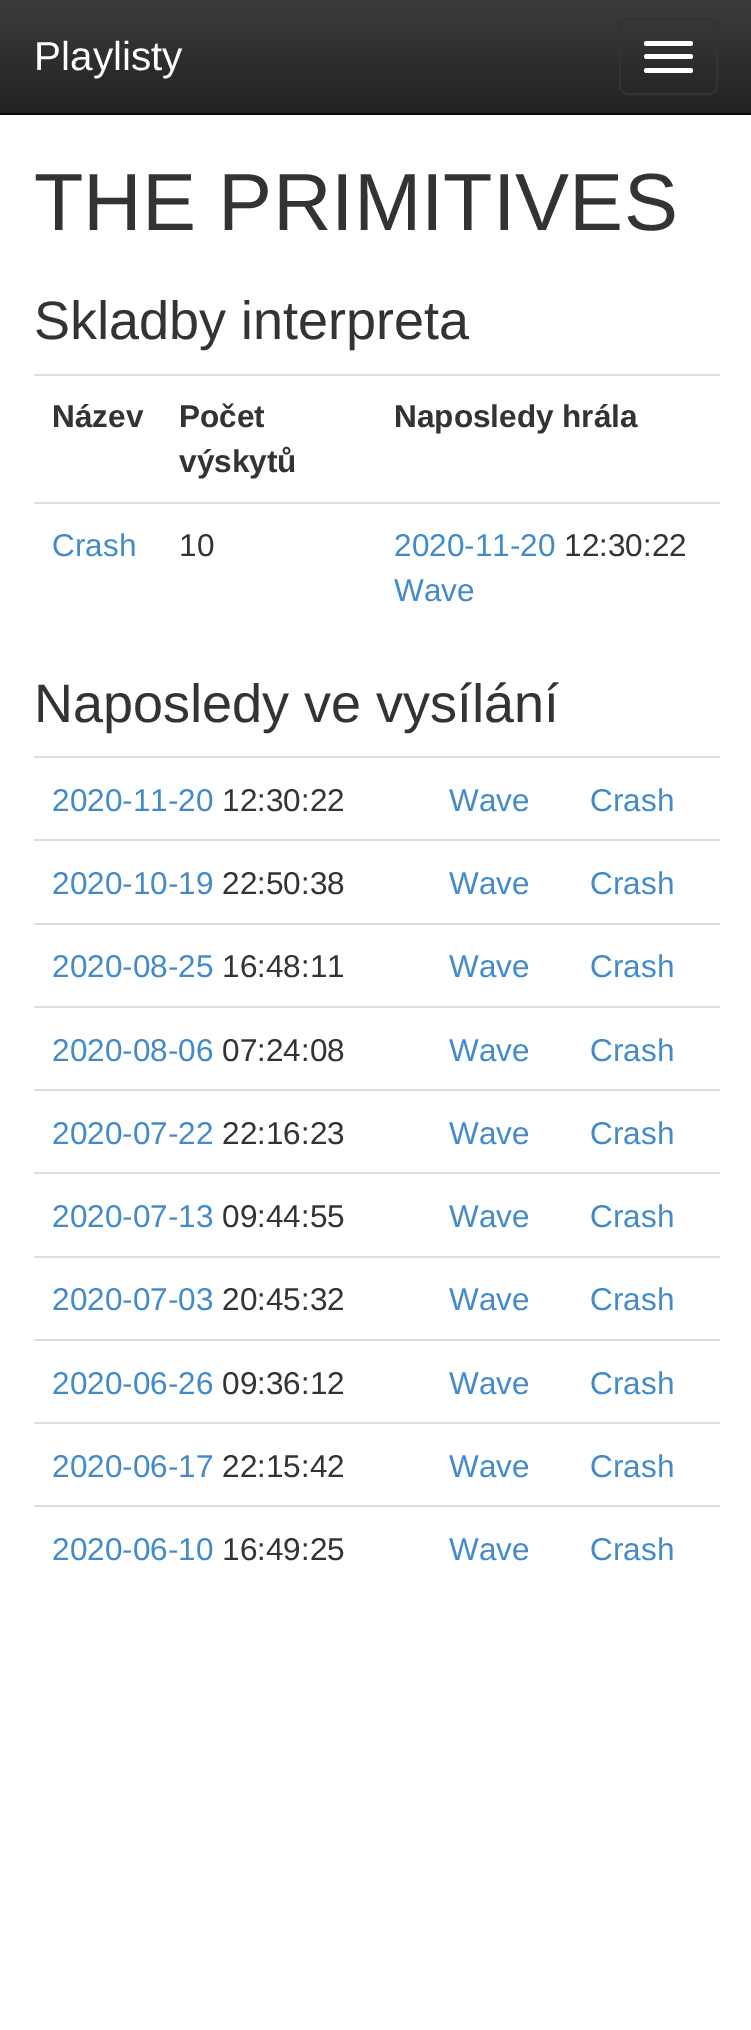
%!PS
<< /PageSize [751 2030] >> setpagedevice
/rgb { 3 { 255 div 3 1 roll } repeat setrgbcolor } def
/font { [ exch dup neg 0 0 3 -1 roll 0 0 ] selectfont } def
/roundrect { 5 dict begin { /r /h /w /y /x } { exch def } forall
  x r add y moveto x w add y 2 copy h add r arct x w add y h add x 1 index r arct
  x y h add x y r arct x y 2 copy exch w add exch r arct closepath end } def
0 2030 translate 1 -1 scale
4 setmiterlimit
255 255 255 rgb
0 0 751 2030 rectfill
gsave 0 0 moveto 751 0 lineto 751 113 lineto 0 113 lineto closepath clip newpath
<< /ShadingType 2 /ColorSpace /DeviceRGB /Coords [376 0 376 113] /Extend [true true] /Function << /FunctionType 2 /Domain [0 1] /C0 [0.235 0.235 0.235] /C1 [0.133 0.133 0.133] /N 1 >> >> shfill grestore
8 8 8 rgb
0 113 751 2 rectfill
51 51 51 rgb
2 setlinewidth
620 19 97 75 8 roundrect stroke
255 255 255 rgb
644 41 49 5 2.5 roundrect fill
644 54 49 5 2.5 roundrect fill
644 68 49 5 2.5 roundrect fill
[
  [34 374 686 2 221 221 221]
  [34 502 686 2 221 221 221]
  [34 756 686 2 221 221 221]
  [34 839 686 2 221 221 221]
  [34 923 686 2 221 221 221]
  [34 1006 686 2 221 221 221]
  [34 1089 686 2 221 221 221]
  [34 1172 686 2 221 221 221]
  [34 1256 686 2 221 221 221]
  [34 1339 686 2 221 221 221]
  [34 1422 686 2 221 221 221]
  [34 1505 686 2 221 221 221]
] { aload pop rgb rectfill } forall
/LiberationSans-Regular 40.5 font
255 255 255 rgb
34 70 moveto (Playlisty) show
/LiberationSans-Regular 81 font
51 51 51 rgb
34 230 moveto (THE PRIMITIVES) show
/LiberationSans-Regular 54 font
34 339 moveto (Skladby interpreta) show
/LiberationSans-Bold 31.5 font
[
  [(Název) 52 427]
  [(Počet) 179 427]
  [(výskytů) 179 472]
  [(Naposledy hrála) 394 427]
] { aload pop moveto show } forall
/LiberationSans-Regular 31.5 font
66 139 202 rgb
52 556 moveto (Crash) show
51 51 51 rgb
179 556 moveto (10) show
66 139 202 rgb
394 556 moveto (2020-11-20) show
51 51 51 rgb
564 556 moveto (12:30:22) show
66 139 202 rgb
394 601 moveto (Wave) show
/LiberationSans-Regular 54 font
51 51 51 rgb
34 722 moveto (Naposledy ve vysílání) show
/LiberationSans-Regular 31.5 font
66 139 202 rgb
52 811 moveto (2020-11-20) show
51 51 51 rgb
222 811 moveto (12:30:22) show
66 139 202 rgb
[
  [(Wave) 449 811]
  [(Crash) 590 811]
  [(2020-10-19) 52 894]
] { aload pop moveto show } forall
51 51 51 rgb
222 894 moveto (22:50:38) show
66 139 202 rgb
[
  [(Wave) 449 894]
  [(Crash) 590 894]
  [(2020-08-25) 52 977]
] { aload pop moveto show } forall
51 51 51 rgb
222 977 moveto (16:48:11) show
66 139 202 rgb
[
  [(Wave) 449 977]
  [(Crash) 590 977]
  [(2020-08-06) 52 1061]
] { aload pop moveto show } forall
51 51 51 rgb
222 1061 moveto (07:24:08) show
66 139 202 rgb
[
  [(Wave) 449 1061]
  [(Crash) 590 1061]
  [(2020-07-22) 52 1144]
] { aload pop moveto show } forall
51 51 51 rgb
222 1144 moveto (22:16:23) show
66 139 202 rgb
[
  [(Wave) 449 1144]
  [(Crash) 590 1144]
  [(2020-07-13) 52 1227]
] { aload pop moveto show } forall
51 51 51 rgb
222 1227 moveto (09:44:55) show
66 139 202 rgb
[
  [(Wave) 449 1227]
  [(Crash) 590 1227]
  [(2020-07-03) 52 1310]
] { aload pop moveto show } forall
51 51 51 rgb
222 1310 moveto (20:45:32) show
66 139 202 rgb
[
  [(Wave) 449 1310]
  [(Crash) 590 1310]
  [(2020-06-26) 52 1394]
] { aload pop moveto show } forall
51 51 51 rgb
222 1394 moveto (09:36:12) show
66 139 202 rgb
[
  [(Wave) 449 1394]
  [(Crash) 590 1394]
  [(2020-06-17) 52 1477]
] { aload pop moveto show } forall
51 51 51 rgb
222 1477 moveto (22:15:42) show
66 139 202 rgb
[
  [(Wave) 449 1477]
  [(Crash) 590 1477]
  [(2020-06-10) 52 1560]
] { aload pop moveto show } forall
51 51 51 rgb
222 1560 moveto (16:49:25) show
66 139 202 rgb
449 1560 moveto (Wave) show
590 1560 moveto (Crash) show
showpage
